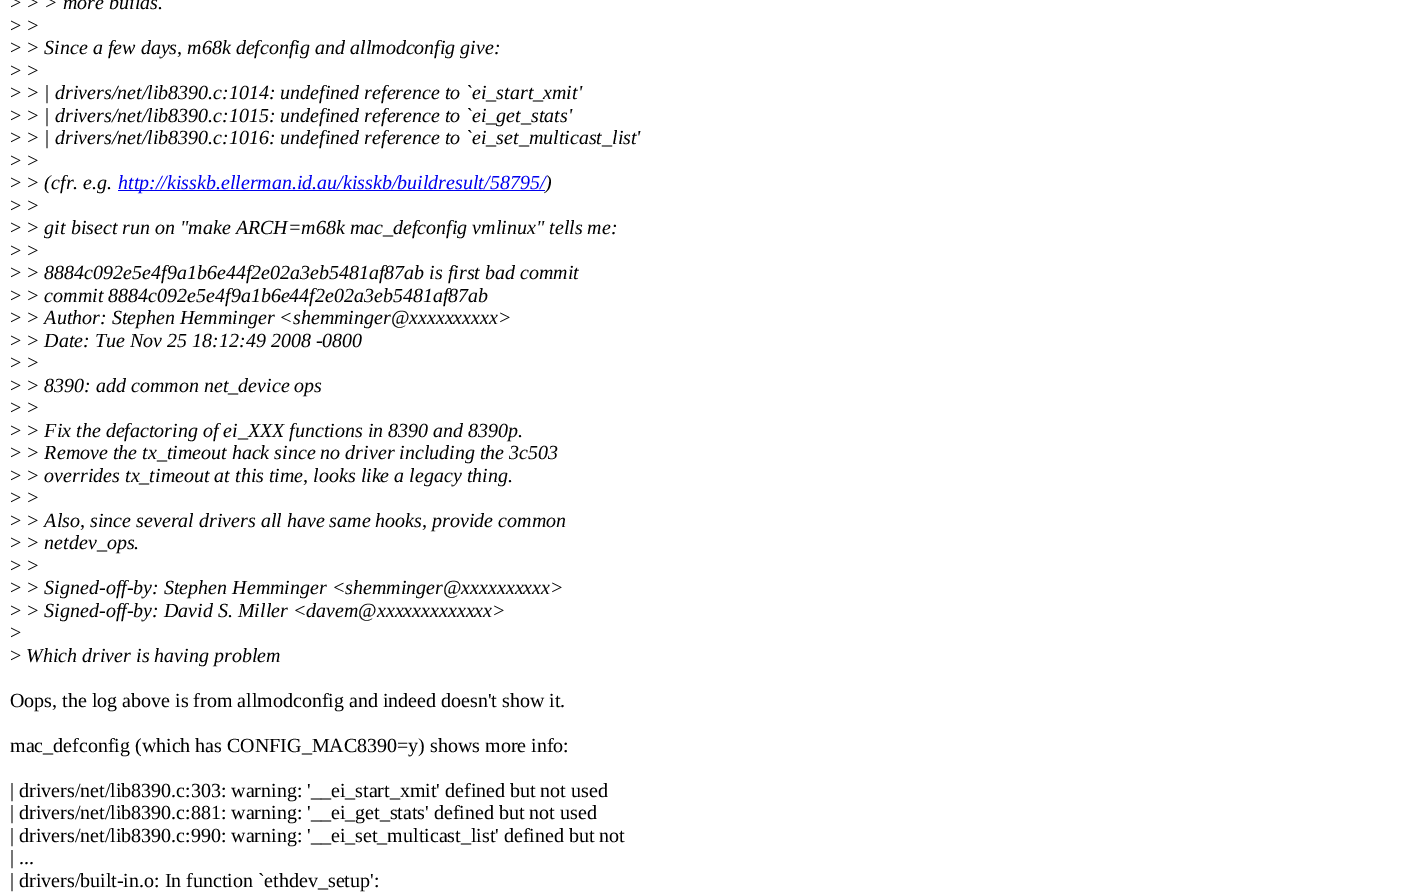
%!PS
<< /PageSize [1414 892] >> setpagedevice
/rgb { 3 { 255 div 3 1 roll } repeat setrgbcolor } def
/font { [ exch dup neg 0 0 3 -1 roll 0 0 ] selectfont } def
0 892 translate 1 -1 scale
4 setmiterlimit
255 255 255 rgb
0 0 1414 892 rectfill
0 0 238 rgb
118 190 427 1 rectfill
/LiberationSerif-Regular 20 font
0 0 0 rgb
10 9 moveto (>) show
/LiberationSerif-Italic 20 font
26 9 moveto (> > more builds.) show
/LiberationSerif-Regular 20 font
10 32 moveto (>) show
/LiberationSerif-Italic 20 font
26 32 moveto (>) show
/LiberationSerif-Regular 20 font
10 54 moveto (>) show
/LiberationSerif-Italic 20 font
26 54 moveto (> Since a few days, m68k defconfig and allmodconfig give:) show
/LiberationSerif-Regular 20 font
10 77 moveto (>) show
/LiberationSerif-Italic 20 font
26 77 moveto (>) show
/LiberationSerif-Regular 20 font
10 99 moveto (>) show
/LiberationSerif-Italic 20 font
26 99 moveto (> | drivers/net/lib8390.c:1014: undefined reference to `ei_start_xmit') show
/LiberationSerif-Regular 20 font
10 122 moveto (>) show
/LiberationSerif-Italic 20 font
26 122 moveto (> | drivers/net/lib8390.c:1015: undefined reference to `ei_get_stats') show
/LiberationSerif-Regular 20 font
10 144 moveto (>) show
/LiberationSerif-Italic 20 font
26 144 moveto (> | drivers/net/lib8390.c:1016: undefined reference to `ei_set_multicast_list') show
/LiberationSerif-Regular 20 font
10 167 moveto (>) show
/LiberationSerif-Italic 20 font
26 167 moveto (>) show
26 189 moveto (> \(cfr. e.g.) show
0 0 238 rgb
118 189 moveto (http://kisskb.ellerman.id.au/kisskb/buildresult/58795/) show
/LiberationSerif-Regular 20 font
0 0 0 rgb
10 189 moveto (>) show
/LiberationSerif-Italic 20 font
545 189 moveto (\)) show
/LiberationSerif-Regular 20 font
10 212 moveto (>) show
/LiberationSerif-Italic 20 font
26 212 moveto (>) show
/LiberationSerif-Regular 20 font
10 234 moveto (>) show
/LiberationSerif-Italic 20 font
26 234 moveto (> git bisect run on "make ARCH=m68k mac_defconfig vmlinux" tells me:) show
/LiberationSerif-Regular 20 font
10 257 moveto (>) show
/LiberationSerif-Italic 20 font
26 257 moveto (>) show
/LiberationSerif-Regular 20 font
10 279 moveto (>) show
/LiberationSerif-Italic 20 font
26 279 moveto (> 8884c092e5e4f9a1b6e44f2e02a3eb5481af87ab is first bad commit) show
/LiberationSerif-Regular 20 font
10 302 moveto (>) show
/LiberationSerif-Italic 20 font
26 302 moveto (> commit 8884c092e5e4f9a1b6e44f2e02a3eb5481af87ab) show
/LiberationSerif-Regular 20 font
10 324 moveto (>) show
/LiberationSerif-Italic 20 font
26 324 moveto (> Author: Stephen Hemminger <shemminger@xxxxxxxxxx>) show
/LiberationSerif-Regular 20 font
10 347 moveto (>) show
/LiberationSerif-Italic 20 font
26 347 moveto (> Date: Tue Nov 25 18:12:49 2008 -0800) show
/LiberationSerif-Regular 20 font
10 369 moveto (>) show
/LiberationSerif-Italic 20 font
26 369 moveto (>) show
/LiberationSerif-Regular 20 font
10 392 moveto (>) show
/LiberationSerif-Italic 20 font
26 392 moveto (> 8390: add common net_device ops) show
/LiberationSerif-Regular 20 font
10 414 moveto (>) show
/LiberationSerif-Italic 20 font
26 414 moveto (>) show
/LiberationSerif-Regular 20 font
10 437 moveto (>) show
/LiberationSerif-Italic 20 font
26 437 moveto (> Fix the defactoring of ei_XXX functions in 8390 and 8390p.) show
/LiberationSerif-Regular 20 font
10 459 moveto (>) show
/LiberationSerif-Italic 20 font
26 459 moveto (> Remove the tx_timeout hack since no driver including the 3c503) show
/LiberationSerif-Regular 20 font
10 482 moveto (>) show
/LiberationSerif-Italic 20 font
26 482 moveto (> overrides tx_timeout at this time, looks like a legacy thing.) show
/LiberationSerif-Regular 20 font
10 504 moveto (>) show
/LiberationSerif-Italic 20 font
26 504 moveto (>) show
/LiberationSerif-Regular 20 font
10 527 moveto (>) show
/LiberationSerif-Italic 20 font
26 527 moveto (> Also, since several drivers all have same hooks, provide common) show
/LiberationSerif-Regular 20 font
10 549 moveto (>) show
/LiberationSerif-Italic 20 font
26 549 moveto (> netdev_ops.) show
/LiberationSerif-Regular 20 font
10 572 moveto (>) show
/LiberationSerif-Italic 20 font
26 572 moveto (>) show
/LiberationSerif-Regular 20 font
10 594 moveto (>) show
/LiberationSerif-Italic 20 font
26 594 moveto (> Signed-off-by: Stephen Hemminger <shemminger@xxxxxxxxxx>) show
/LiberationSerif-Regular 20 font
10 617 moveto (>) show
/LiberationSerif-Italic 20 font
26 617 moveto (> Signed-off-by: David S. Miller <davem@xxxxxxxxxxxxx>) show
/LiberationSerif-Regular 20 font
10 639 moveto (>) show
10 662 moveto (>) show
/LiberationSerif-Italic 20 font
26 662 moveto (Which driver is having problem) show
/LiberationSerif-Regular 20 font
[
  [(Oops, the log above is from allmodconfig and indeed doesn't show it.) 10 707]
  [(mac_defconfig \(which has CONFIG_MAC8390=y\) shows more info:) 10 752]
  [(| drivers/net/lib8390.c:303: warning: '__ei_start_xmit' defined but not used) 10 797]
  [(| drivers/net/lib8390.c:881: warning: '__ei_get_stats' defined but not used) 10 819]
  [(| drivers/net/lib8390.c:990: warning: '__ei_set_multicast_list' defined but not) 10 842]
  [(| ...) 10 864]
  [(| drivers/built-in.o: In function `ethdev_setup':) 10 887]
] { aload pop moveto show } forall
showpage
